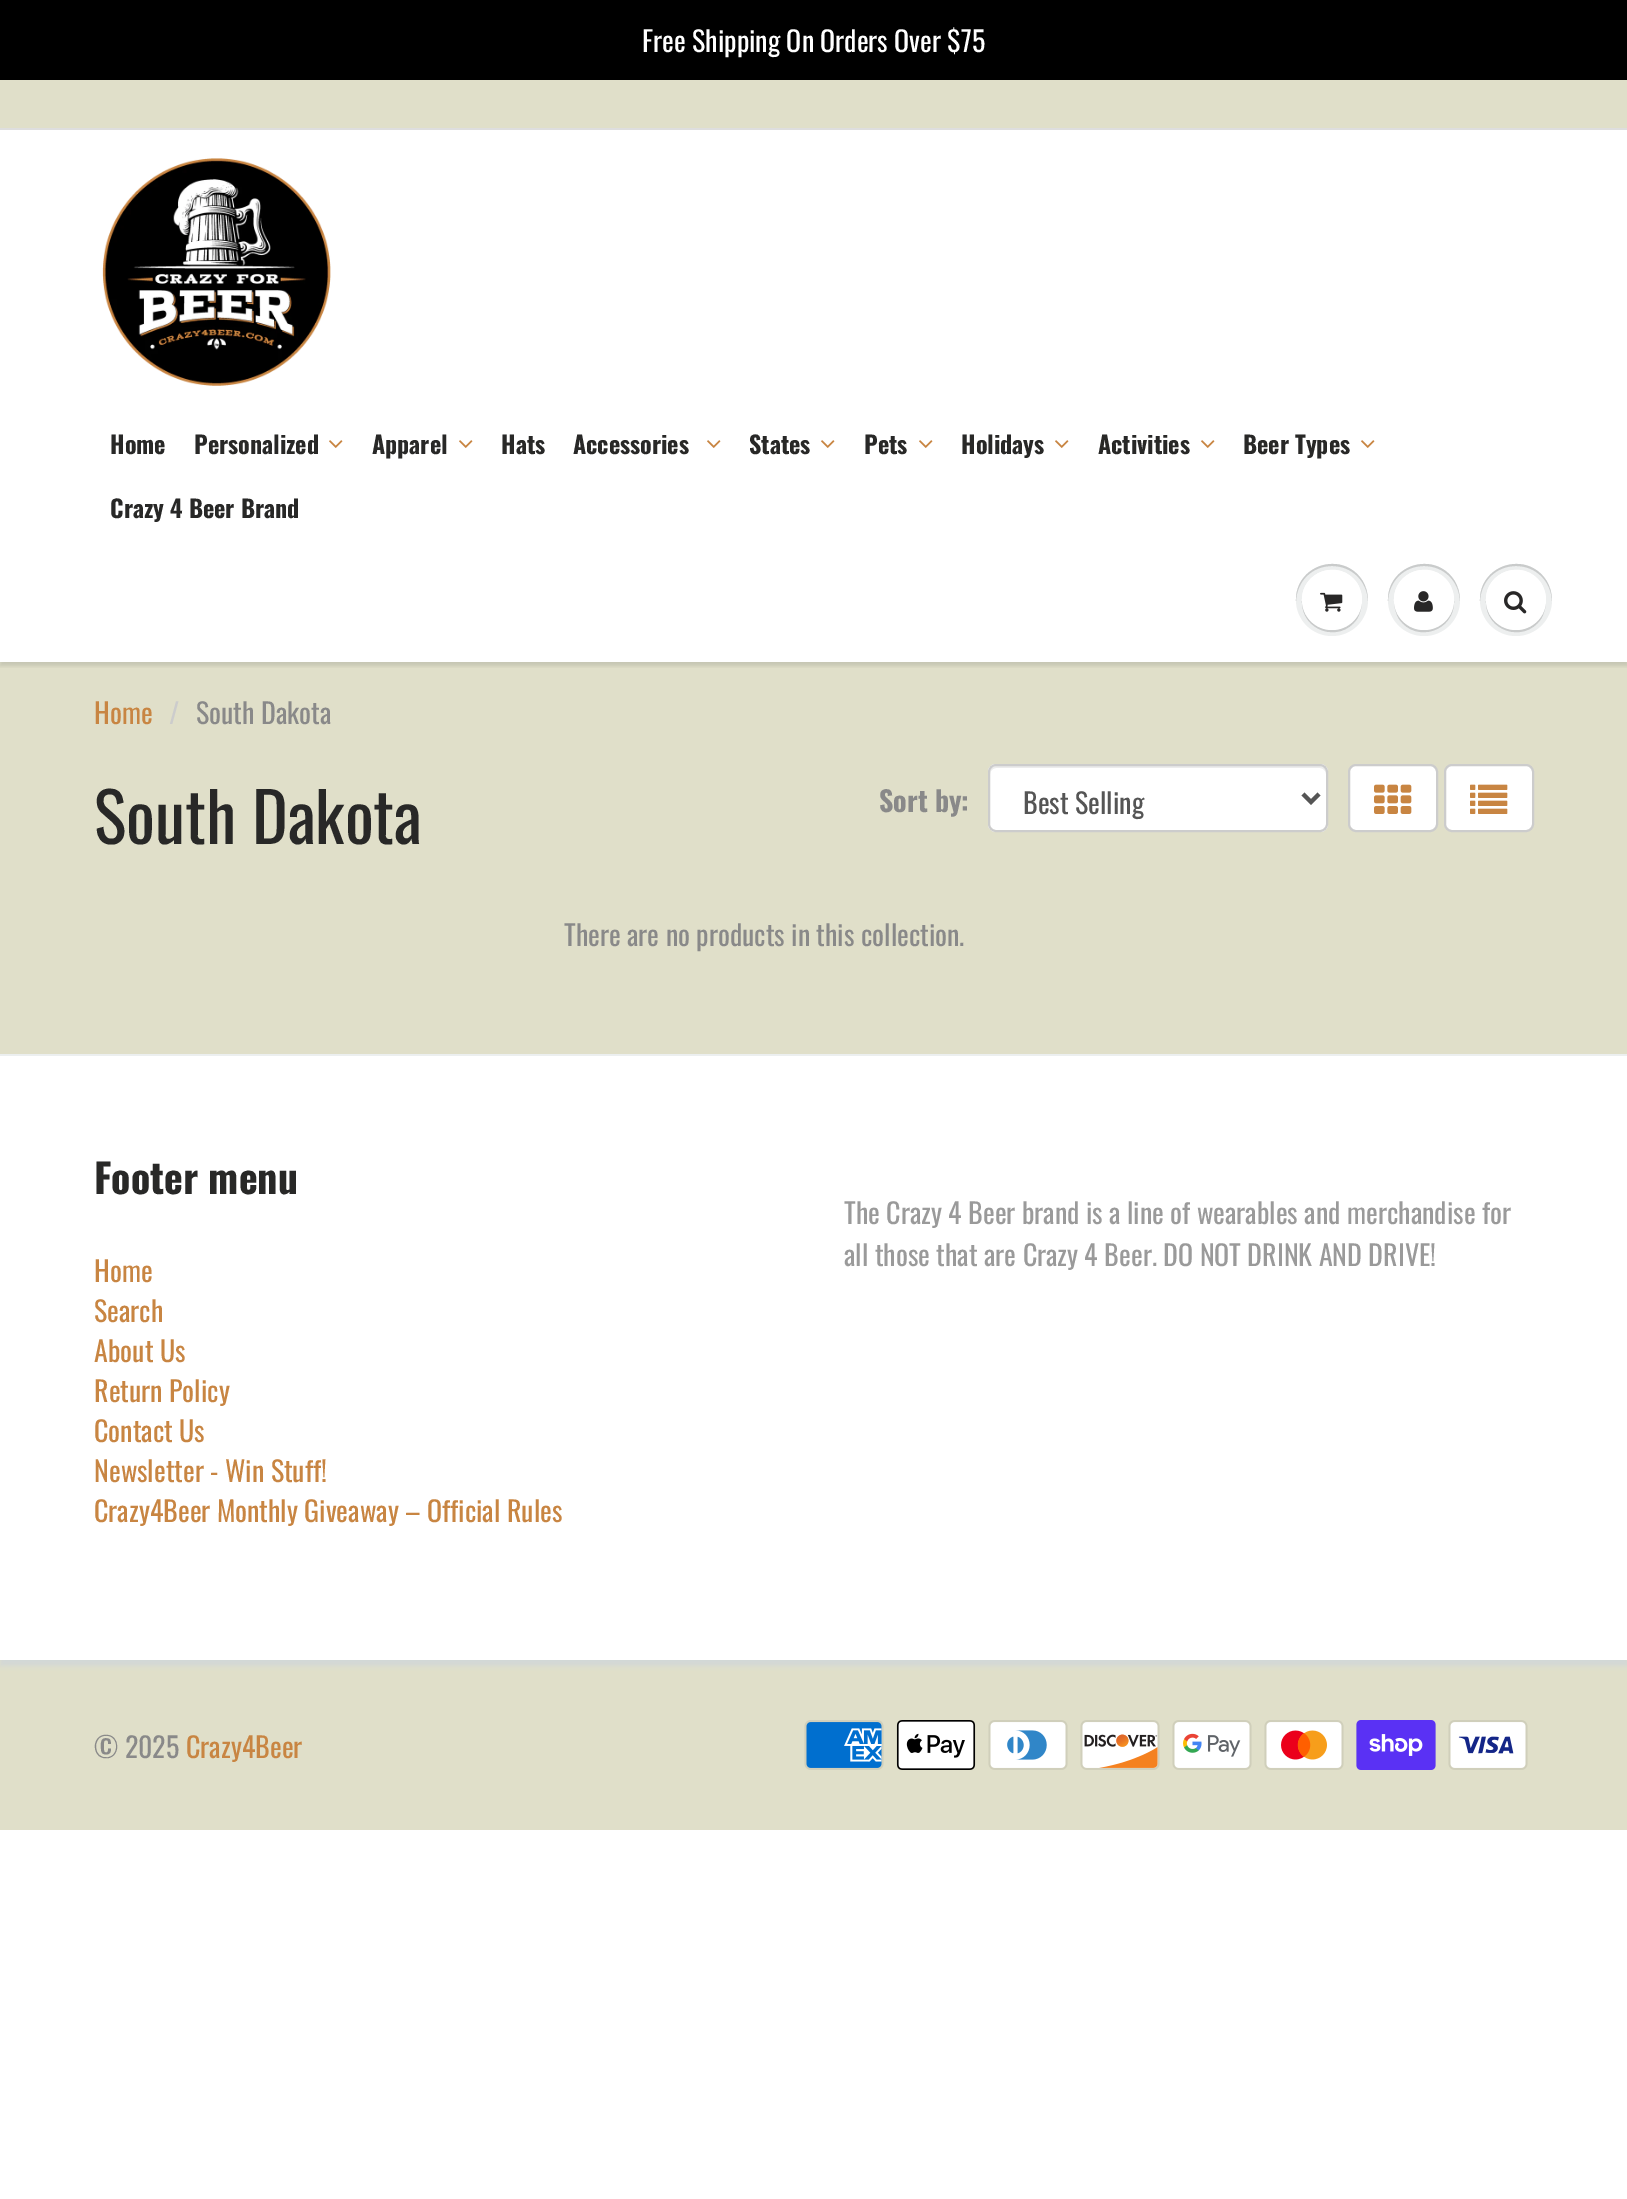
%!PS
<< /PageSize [1627 2199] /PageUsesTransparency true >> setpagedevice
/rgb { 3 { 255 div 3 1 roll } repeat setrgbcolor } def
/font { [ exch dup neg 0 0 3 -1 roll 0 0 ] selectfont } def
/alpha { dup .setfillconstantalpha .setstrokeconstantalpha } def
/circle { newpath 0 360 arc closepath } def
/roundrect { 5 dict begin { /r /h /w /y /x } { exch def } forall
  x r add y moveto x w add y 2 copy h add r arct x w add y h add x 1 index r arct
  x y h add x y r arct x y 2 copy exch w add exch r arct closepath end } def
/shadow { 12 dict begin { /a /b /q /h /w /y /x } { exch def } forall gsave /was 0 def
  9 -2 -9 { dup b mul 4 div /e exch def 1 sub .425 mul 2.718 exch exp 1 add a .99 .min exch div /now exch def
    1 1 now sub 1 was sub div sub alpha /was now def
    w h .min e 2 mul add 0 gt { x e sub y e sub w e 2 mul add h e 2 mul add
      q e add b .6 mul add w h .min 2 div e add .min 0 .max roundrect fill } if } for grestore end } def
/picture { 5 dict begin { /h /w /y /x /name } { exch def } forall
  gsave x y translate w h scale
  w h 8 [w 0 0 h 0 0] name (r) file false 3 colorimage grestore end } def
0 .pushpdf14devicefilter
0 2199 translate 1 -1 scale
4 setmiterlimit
255 255 255 rgb
0 0 1627 2199 rectfill
[
  [0 0 1627 80 0 0 0]
  [0 80 1627 48 224 223 201]
  [0 662 1627 392 224 223 201]
] { aload pop rgb rectfill } forall
gsave
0 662 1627 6 rectclip
11 25 28 rgb
0 132 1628 534 0 2 0.12 shadow
grestore
222 222 222 rgb
0 128 1627 2 rectfill
(img/1.rgb) 102 158 229 228 picture
(img/2.rgb) 329 440 14 8 picture
(img/2.rgb) 459 440 14 8 picture
(img/2.rgb) 707 440 14 8 picture
(img/2.rgb) 821 440 14 8 picture
(img/2.rgb) 919 440 14 8 picture
(img/2.rgb) 1055 440 14 8 picture
(img/2.rgb) 1201 440 14 8 picture
(img/2.rgb) 1361 440 14 8 picture
237 239 239 rgb
1332 600 36 circle fill
201 203 203 rgb
1362 601 moveto 1361 617 1348 630 1332 630 curveto 1316 630 1303 617 1302 601 curveto 1301 631 1340 644 1357 619 curveto 1360 614 1362 607 1362 601 curveto closepath fill
1332 566 moveto 1352 566 1367 581 1368 601 curveto 1368 594 1366 586 1362 580 curveto 1342 550 1295 565 1296 601 curveto 1297 581 1312 566 1332 566 curveto closepath fill
255 255 255 rgb
1332 600 30 circle fill
1332 572 moveto 1349 572 1361 584 1362 601 curveto 1362 595 1360 588 1357 583 curveto 1340 558 1301 571 1302 601 curveto 1303 584 1315 572 1332 572 curveto closepath fill
(img/3.rgb) 1320 592 23 20 picture
237 239 239 rgb
1424 600 36 circle fill
201 203 203 rgb
1454 601 moveto 1453 617 1440 630 1424 630 curveto 1408 630 1395 617 1394 601 curveto 1394 607 1396 614 1399 619 curveto 1416 644 1455 631 1454 601 curveto closepath fill
1424 566 moveto 1444 566 1459 581 1460 601 curveto 1460 594 1458 586 1454 580 curveto 1434 550 1387 565 1388 601 curveto 1389 581 1404 566 1424 566 curveto closepath fill
255 255 255 rgb
1424 600 30 circle fill
1424 572 moveto 1441 572 1453 584 1454 601 curveto 1454 595 1452 588 1449 583 curveto 1432 558 1393 571 1394 601 curveto 1395 584 1407 572 1424 572 curveto closepath fill
(img/4.rgb) 1414 591 19 21 picture
237 239 239 rgb
1516 600 36 circle fill
201 203 203 rgb
1546 601 moveto 1545 617 1532 630 1516 630 curveto 1500 630 1487 617 1486 601 curveto 1485 631 1524 644 1541 619 curveto 1544 614 1546 607 1546 601 curveto closepath fill
1516 566 moveto 1536 566 1551 581 1552 601 curveto 1552 594 1550 586 1546 580 curveto 1526 550 1479 565 1480 601 curveto 1481 581 1496 566 1516 566 curveto closepath fill
255 255 255 rgb
1516 600 30 circle fill
1516 572 moveto 1533 572 1545 584 1546 601 curveto 1546 595 1544 588 1541 583 curveto 1524 558 1485 571 1486 601 curveto 1487 584 1499 572 1516 572 curveto closepath fill
(img/5.rgb) 1504 591 23 23 picture
988 764 340 68 8 roundrect fill
236 236 236 rgb
996 768 moveto 1320 768 lineto 1323 768 1326 771 1326 774 curveto 1326 772 lineto 1326 769 1323 766 1320 766 curveto 996 766 lineto 993 766 990 769 990 772 curveto 990 774 lineto 990 771 993 768 996 768 curveto closepath fill
204 204 204 rgb
2 setlinewidth
989 765 338 66 7 roundrect stroke
85 85 85 rgb
4 setlinewidth
1303 794 moveto 1311 802 lineto 1319 794 lineto stroke
255 255 255 rgb
1349 765 88 66 7 roundrect gsave fill grestore
204 204 204 rgb
2 setlinewidth
stroke
(img/6.rgb) 1374 784 38 30 picture
255 255 255 rgb
1445 765 88 66 7 roundrect gsave fill grestore
204 204 204 rgb
stroke
(img/7.rgb) 1470 784 38 30 picture
224 223 201 rgb
0 1660 1627 170 rectfill
gsave
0 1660 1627 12 rectclip
209 215 215 rgb
0 1060 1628 606 0 3 1 shadow
grestore
236 239 239 rgb
0 1054 1627 2 rectfill
(img/8.rgb) 804 1720 80 50 picture
(img/9.rgb) 896 1720 80 50 picture
(img/10.rgb) 988 1720 80 50 picture
(img/11.rgb) 1080 1720 80 50 picture
(img/12.rgb) 1172 1720 80 50 picture
(img/13.rgb) 1264 1720 80 50 picture
(img/14.rgb) 1356 1720 80 50 picture
(img/15.rgb) 1448 1720 80 50 picture
/Oswald-Regular 28 font
255 255 255 rgb
642 52 moveto (Free Shipping On Orders Over $75) show
/Oswald-Bold 24 font
40 40 39 rgb
[
  [(Home) 110 454]
  [(Personalized) 194 454]
  [(Apparel) 372 454]
  [(Hats) 501 454]
  [(Accessories) 573 454]
  [(States) 749 454]
  [(Pets) 864 454]
  [(Holidays) 961 454]
  [(Activities) 1098 454]
  [(Beer Types) 1243 454]
  [(Crazy 4 Beer Brand) 110 518]
] { aload pop moveto show } forall
/Oswald-Regular 28 font
200 133 66 rgb
94 724 moveto (Home) show
204 204 204 rgb
169 724 moveto (/) show
137 137 137 rgb
196 724 moveto (South Dakota) show
/Oswald-Regular 68 font
40 40 39 rgb
94 844 moveto (South Dakota) show
/Oswald-Bold 28 font
137 137 137 rgb
879 812 moveto (Sort by:) show
/Oswald-Regular 28 font
85 85 85 rgb
1023 814 moveto (Best Selling) show
137 137 137 rgb
564 946 moveto (There are no products in this collection.) show
/Oswald-Bold 40 font
40 40 39 rgb
94 1194 moveto (Footer menu) show
/Oswald-Regular 28 font
200 133 66 rgb
[
  [(Home) 94 1282]
  [(Search) 94 1322]
  [(About Us) 94 1362]
  [(Return Policy) 94 1402]
  [(Contact Us) 94 1442]
  [(Newsletter - Win Stuff!) 94 1482]
  [(Crazy4Beer Monthly Giveaway – Official Rules) 94 1522]
] { aload pop moveto show } forall
154 154 154 rgb
844 1224 moveto (The Crazy 4 Beer brand is a line of wearables and merchandise for) show
844 1266 moveto (all those that are Crazy 4 Beer. DO NOT DRINK AND DRIVE!) show
137 137 137 rgb
94 1758 moveto (© 2025) show
200 133 66 rgb
186 1758 moveto (Crazy4Beer) show
.poppdf14devicefilter showpage
